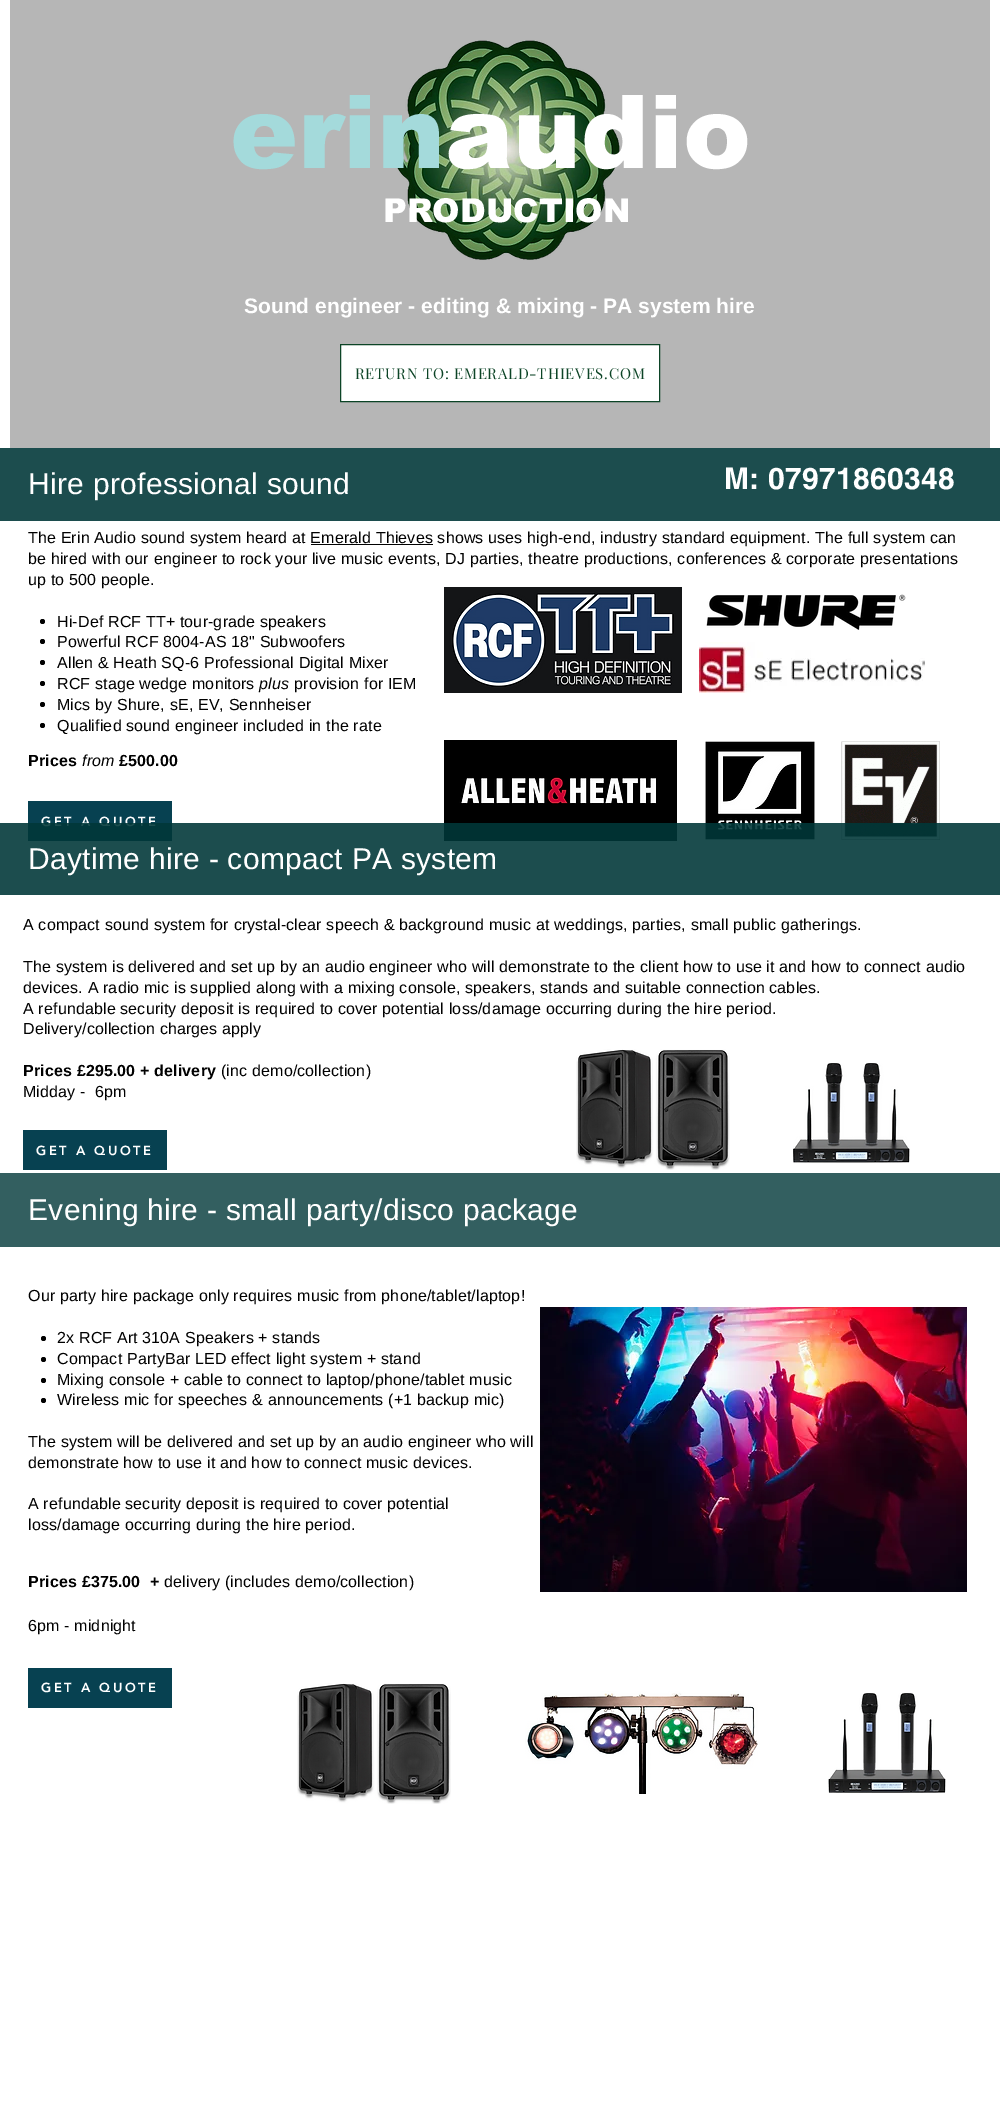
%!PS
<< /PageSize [1000 2115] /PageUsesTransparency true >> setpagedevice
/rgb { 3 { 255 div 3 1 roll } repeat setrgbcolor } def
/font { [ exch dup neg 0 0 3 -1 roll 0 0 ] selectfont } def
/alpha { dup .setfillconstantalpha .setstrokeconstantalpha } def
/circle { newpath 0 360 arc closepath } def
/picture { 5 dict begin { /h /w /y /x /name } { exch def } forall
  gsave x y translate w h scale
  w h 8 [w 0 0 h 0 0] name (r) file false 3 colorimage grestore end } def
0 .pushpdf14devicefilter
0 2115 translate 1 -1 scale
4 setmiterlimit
255 255 255 rgb
0 0 1000 2115 rectfill
182 182 182 rgb
10 0 980 448 rectfill
(img/1.rgb) 392 40 228 220 picture
255 255 255 rgb
340.5 344.5 moveto 659.5 344.5 lineto 659.5 401.5 lineto 340.5 401.5 lineto closepath gsave fill grestore
12 68 38 rgb
stroke
28 77 78 rgb
0 448 1000 73 rectfill
0 0 0 rgb
311 544 122 1 rectfill
42.5 621.5 2.5 circle fill
42.5 641.5 2.5 circle fill
42.5 662.5 2.5 circle fill
42.5 683.5 2.5 circle fill
42.5 704.5 2.5 circle fill
42.5 725.5 2.5 circle fill
(img/2.rgb) 444 587 238 106 picture
(img/3.rgb) 706 594 200 36 picture
(img/4.rgb) 699 642 226 51 picture
7 65 81 rgb
28 801 144 40 rectfill
(img/5.rgb) 444 740 233 101 picture
(img/6.rgb) 705 741 110 99 picture
(img/7.rgb) 841 741 99 99 picture
23 1130 144 40 rectfill
(img/8.rgb) 576 1049 154 121 picture
(img/9.rgb) 793 1063 117 100 picture
0 0 0 rgb
43.5 1338.5 2.5 circle fill
43.5 1359.5 2.5 circle fill
43.5 1380.5 2.5 circle fill
43.5 1400.5 2.5 circle fill
(img/10.rgb) 540 1307 427 285 picture
7 65 81 rgb
28 1668 144 40 rectfill
(img/8.rgb) 297 1683 154 121 picture
(img/11.rgb) 525 1691 235 103 picture
(img/12.rgb) 828 1693 118 100 picture
51 95 96 rgb
0 1173 1000 74 rectfill
/arial-Black 102 font
164 218 219 rgb
230 168 moveto (erin) show
255 255 255 rgb
445 168 moveto (audio) show
/arial-Black 33 font
383 222 moveto (PRODUCTION) show
/LiberationSans-Bold 21 font
244 313 moveto (Sound engineer - editing & mixing - PA system hire) show
/PlayfairDisplay-Regular 15 font
12 68 38 rgb
355 379 moveto 0.75 0 (RETURN TO: EMERALD-THIEVES.COM) ashow
/LiberationSans-Regular 30 font
255 255 255 rgb
28 494 moveto 0.3 0 (Hire professional sound) ashow
/helvetica-Bold 30 font
724 489 moveto 0.3 0 (M: 07971860348) ashow
/LiberationSans-Regular 16 font
0 0 0 rgb
28 543 moveto 0.16 0 (The Erin Audio sound system heard at Emerald Thieves shows uses high-end, industry standard equipment. The full system can) ashow
28 564 moveto 0.16 0 (be hired with our engineer to rock your live music events, DJ parties, theatre productions, conferences & corporate presentations) ashow
28 585 moveto 0.16 0 (up to 500 people.) ashow
57 627 moveto 0.16 0 (Hi-Def RCF TT+ tour-grade speakers) ashow
57 647 moveto 0.16 0 (Powerful RCF 8004-AS 18" Subwoofers) ashow
57 668 moveto 0.16 0 (Allen & Heath SQ-6 Professional Digital Mixer) ashow
57 689 moveto 0.16 0 (RCF stage wedge monitors) ashow
/LiberationSans-Italic 16 font
259 689 moveto 0.16 0 (plus) ashow
/LiberationSans-Regular 16 font
294 689 moveto 0.16 0 (provision for IEM) ashow
57 710 moveto 0.16 0 (Mics by Shure, sE, EV, Sennheiser) ashow
57 731 moveto 0.16 0 (Qualified sound engineer included in the rate) ashow
/LiberationSans-Bold 16 font
28 766 moveto 0.16 0 (Prices) ashow
/LiberationSans-Italic 16 font
82 766 moveto 0.16 0 (from) ashow
/LiberationSans-Bold 16 font
119 766 moveto 0.16 0 (£500.00) ashow
/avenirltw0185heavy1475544-Black 13 font
255 255 255 rgb
41 826 moveto 2.6 0 (GET A QUOTE) ashow
/LiberationSans-Regular 16 font
0 0 0 rgb
23 930 moveto 0.16 0 (A compact sound system for crystal-clear speech & background music at weddings, parties, small public gatherings.) ashow
23 972 moveto 0.16 0 (The system is delivered and set up by an audio engineer who will demonstrate to the client how to use it and how to connect audio) ashow
23 993 moveto 0.16 0 (devices. A radio mic is supplied along with a mixing console, speakers, stands and suitable connection cables.) ashow
23 1014 moveto 0.16 0 (A refundable security deposit is required to cover potential loss/damage) ashow
546 1014 moveto (occurring) show
617 1014 moveto 0.16 0 (during the hire period.) ashow
23 1034 moveto 0.16 0 (Delivery/collection charges apply) ashow
/LiberationSans-Bold 16 font
23 1076 moveto 0.16 0 (Prices £295.00 + delivery) ashow
/LiberationSans-Regular 16 font
221 1076 moveto 0.16 0 (\(inc demo/collection\)) ashow
23 1097 moveto 0.16 0 (Midday -  6pm) ashow
/avenirltw0185heavy1475544-Black 13 font
255 255 255 rgb
36 1155 moveto 2.6 0 (GET A QUOTE) ashow
/LiberationSans-Regular 16 font
0 0 0 rgb
28 1301 moveto 0.16 0 (Our party hire package only requires music from phone/tablet/laptop!) ashow
57 1343 moveto 0.16 0 (2x RCF Art 310A Speakers + stands) ashow
57 1364 moveto 0.16 0 (Compact PartyBar LED effect light system + stand) ashow
57 1385 moveto 0.16 0 (Mixing console + cable to connect to laptop/phone/tablet music) ashow
57 1405 moveto 0.16 0 (Wireless mic for speeches & announcements \(+1 backup mic\)) ashow
28 1447 moveto 0.16 0 (The system will be delivered and set up by an audio engineer who will) ashow
28 1468 moveto 0.16 0 (demonstrate how to use it and how to connect music devices.) ashow
28 1509 moveto 0.16 0 (A refundable security deposit is required to cover potential) ashow
28 1530 moveto 0.16 0 (loss/damage) ashow
125 1530 moveto (occurring) show
196 1530 moveto 0.16 0 (during the hire period.) ashow
/LiberationSans-Bold 16 font
28 1587 moveto 0.16 0 (Prices £375.00) ashow
150 1587 moveto 0.16 0 (+) ashow
/LiberationSans-Regular 16 font
164 1587 moveto 0.16 0 (delivery \(includes demo/collection\)) ashow
28 1631 moveto 0.16 0 (6pm - midnight) ashow
/avenirltw0185heavy1475544-Black 13 font
255 255 255 rgb
41 1692 moveto 2.6 0 (GET A QUOTE) ashow
0.89 alpha
0 55 56 rgb
0 823 1000 72 rectfill
/LiberationSans-Regular 30 font
1 alpha
255 255 255 rgb
28 869 moveto 0.3 0 (Daytime hire - compact PA system) ashow
28 1220 moveto 0.3 0 (Evening hire - small party/disco package) ashow
.poppdf14devicefilter showpage
